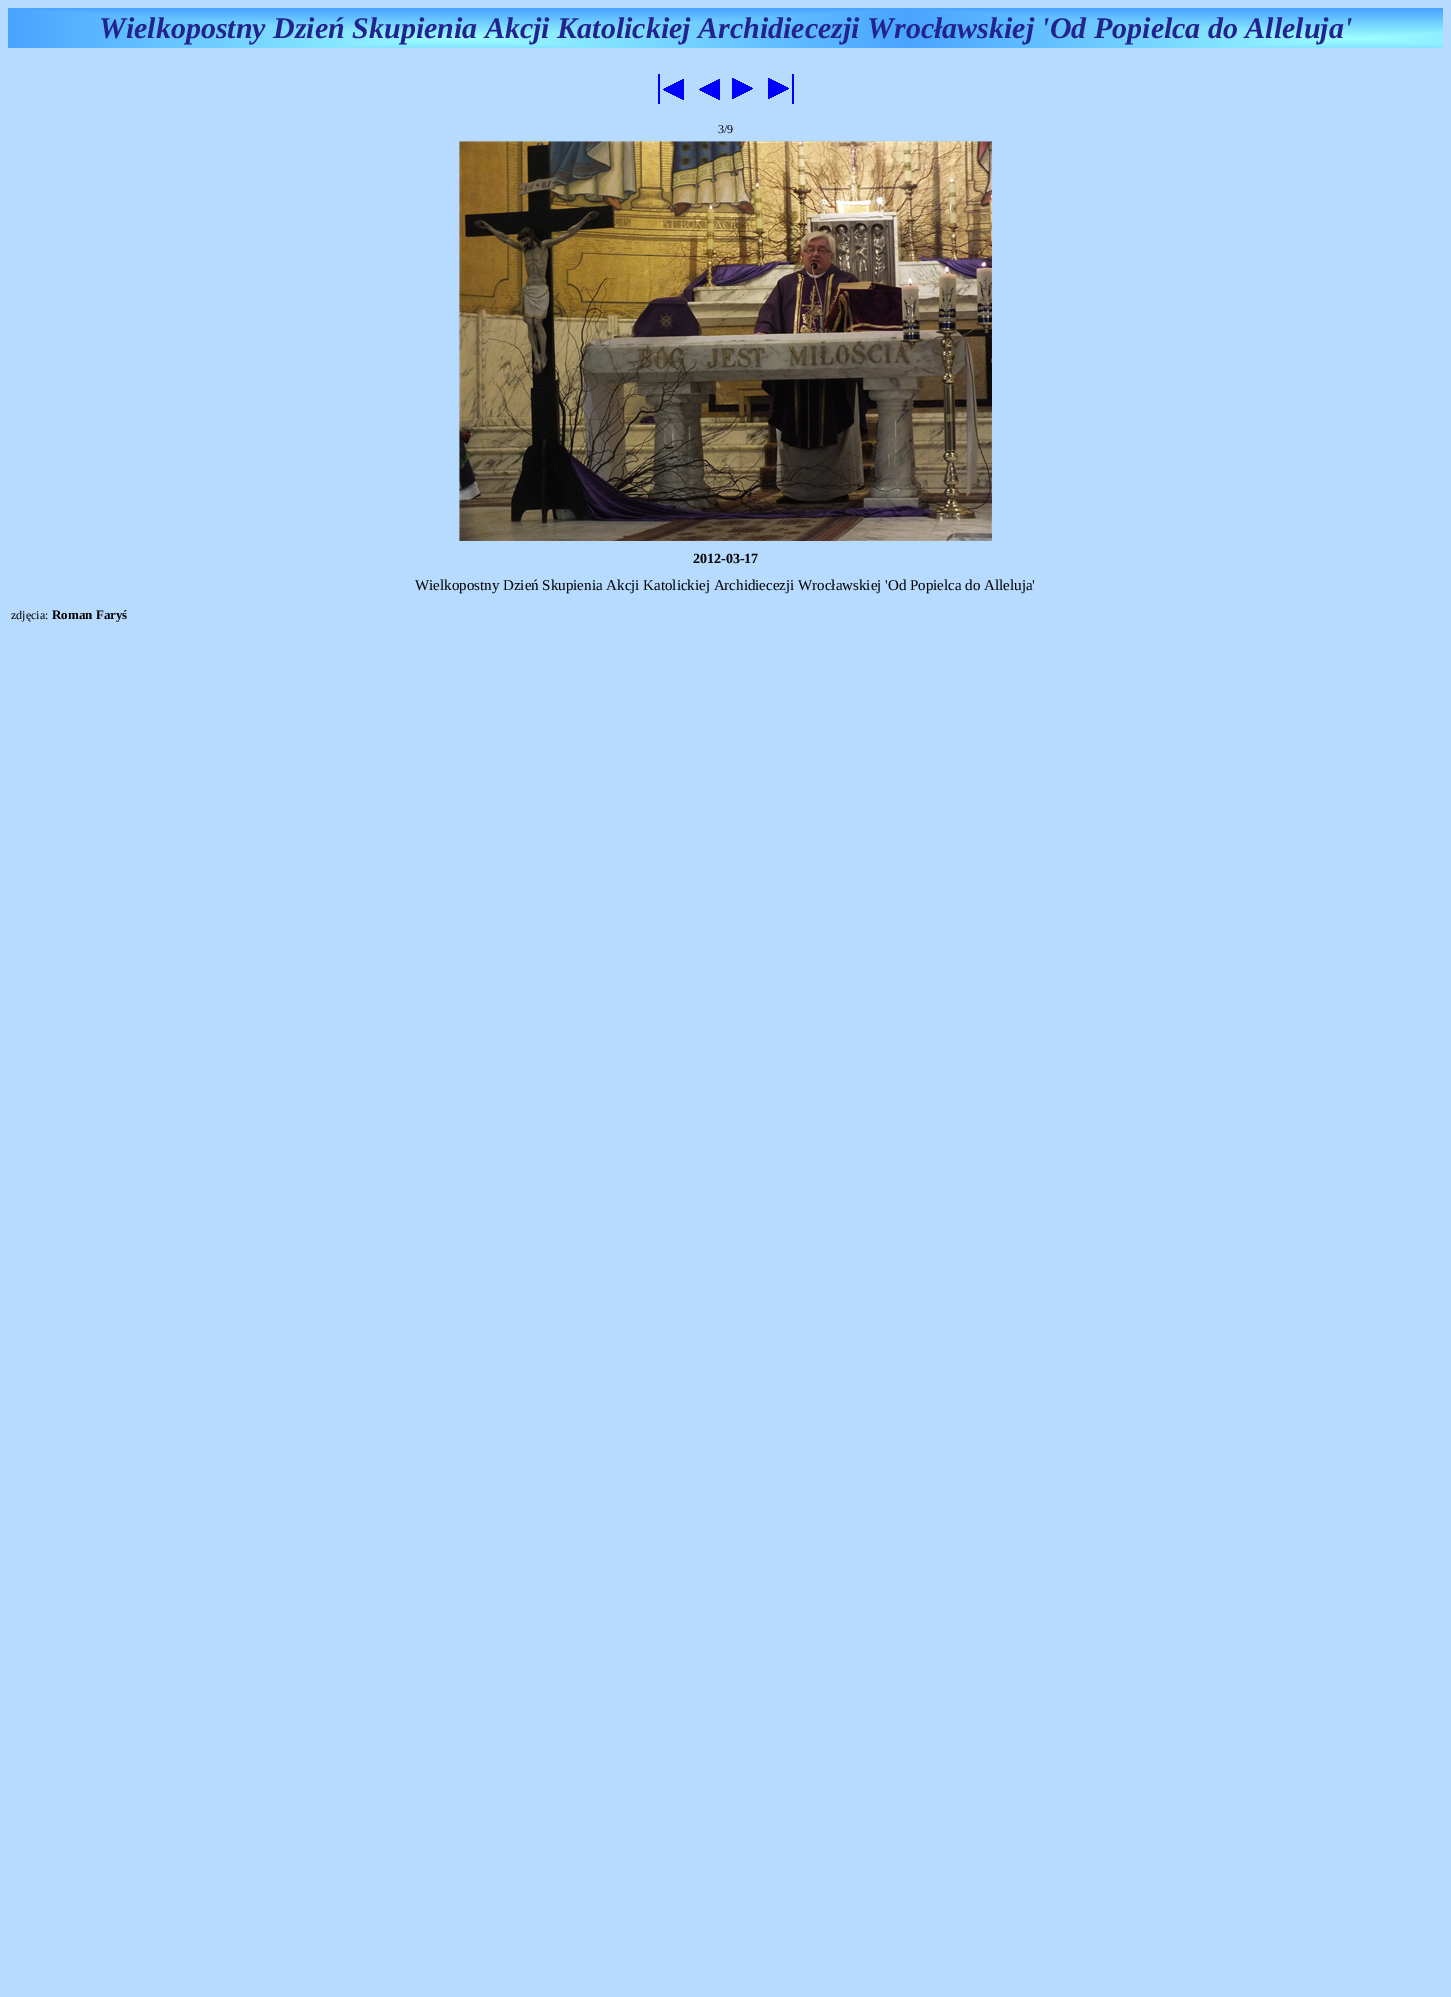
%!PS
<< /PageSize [1451 1997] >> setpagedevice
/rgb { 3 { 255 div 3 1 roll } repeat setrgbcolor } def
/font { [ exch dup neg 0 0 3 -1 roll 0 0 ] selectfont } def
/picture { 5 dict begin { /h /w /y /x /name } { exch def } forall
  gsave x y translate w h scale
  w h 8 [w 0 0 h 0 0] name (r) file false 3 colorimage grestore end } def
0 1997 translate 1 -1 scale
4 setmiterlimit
183 219 255 rgb
0 0 1451 1997 rectfill
(img/1.rgb) 8 8 1435 40 picture
(img/2.rgb) 658 74 26 30 picture
(img/3.rgb) 699 79 21 21 picture
(img/4.rgb) 732 78 21 21 picture
(img/5.rgb) 768 74 26 30 picture
(img/6.rgb) 459 141 533 400 picture
/LiberationSerif-BoldItalic 30 font
35 35 142 rgb
99 38 moveto (Wielkopostny Dzień Skupienia Akcji Katolickiej Archidiecezji Wrocławskiej 'Od Popielca do Alleluja') show
/LiberationSerif-Regular 12 font
0 0 0 rgb
718 133 moveto (3/9) show
/LiberationSerif-Bold 14 font
693 563 moveto (2012-03-17) show
/LiberationSerif-Regular 15 font
415 590 moveto (Wielkopostny Dzień Skupienia Akcji Katolickiej Archidiecezji Wrocławskiej 'Od Popielca do Alleluja') show
/LiberationSerif-Regular 12 font
11 619 moveto (zdjęcia:) show
/LiberationSerif-Bold 13 font
52 619 moveto (Roman Faryś) show
showpage
